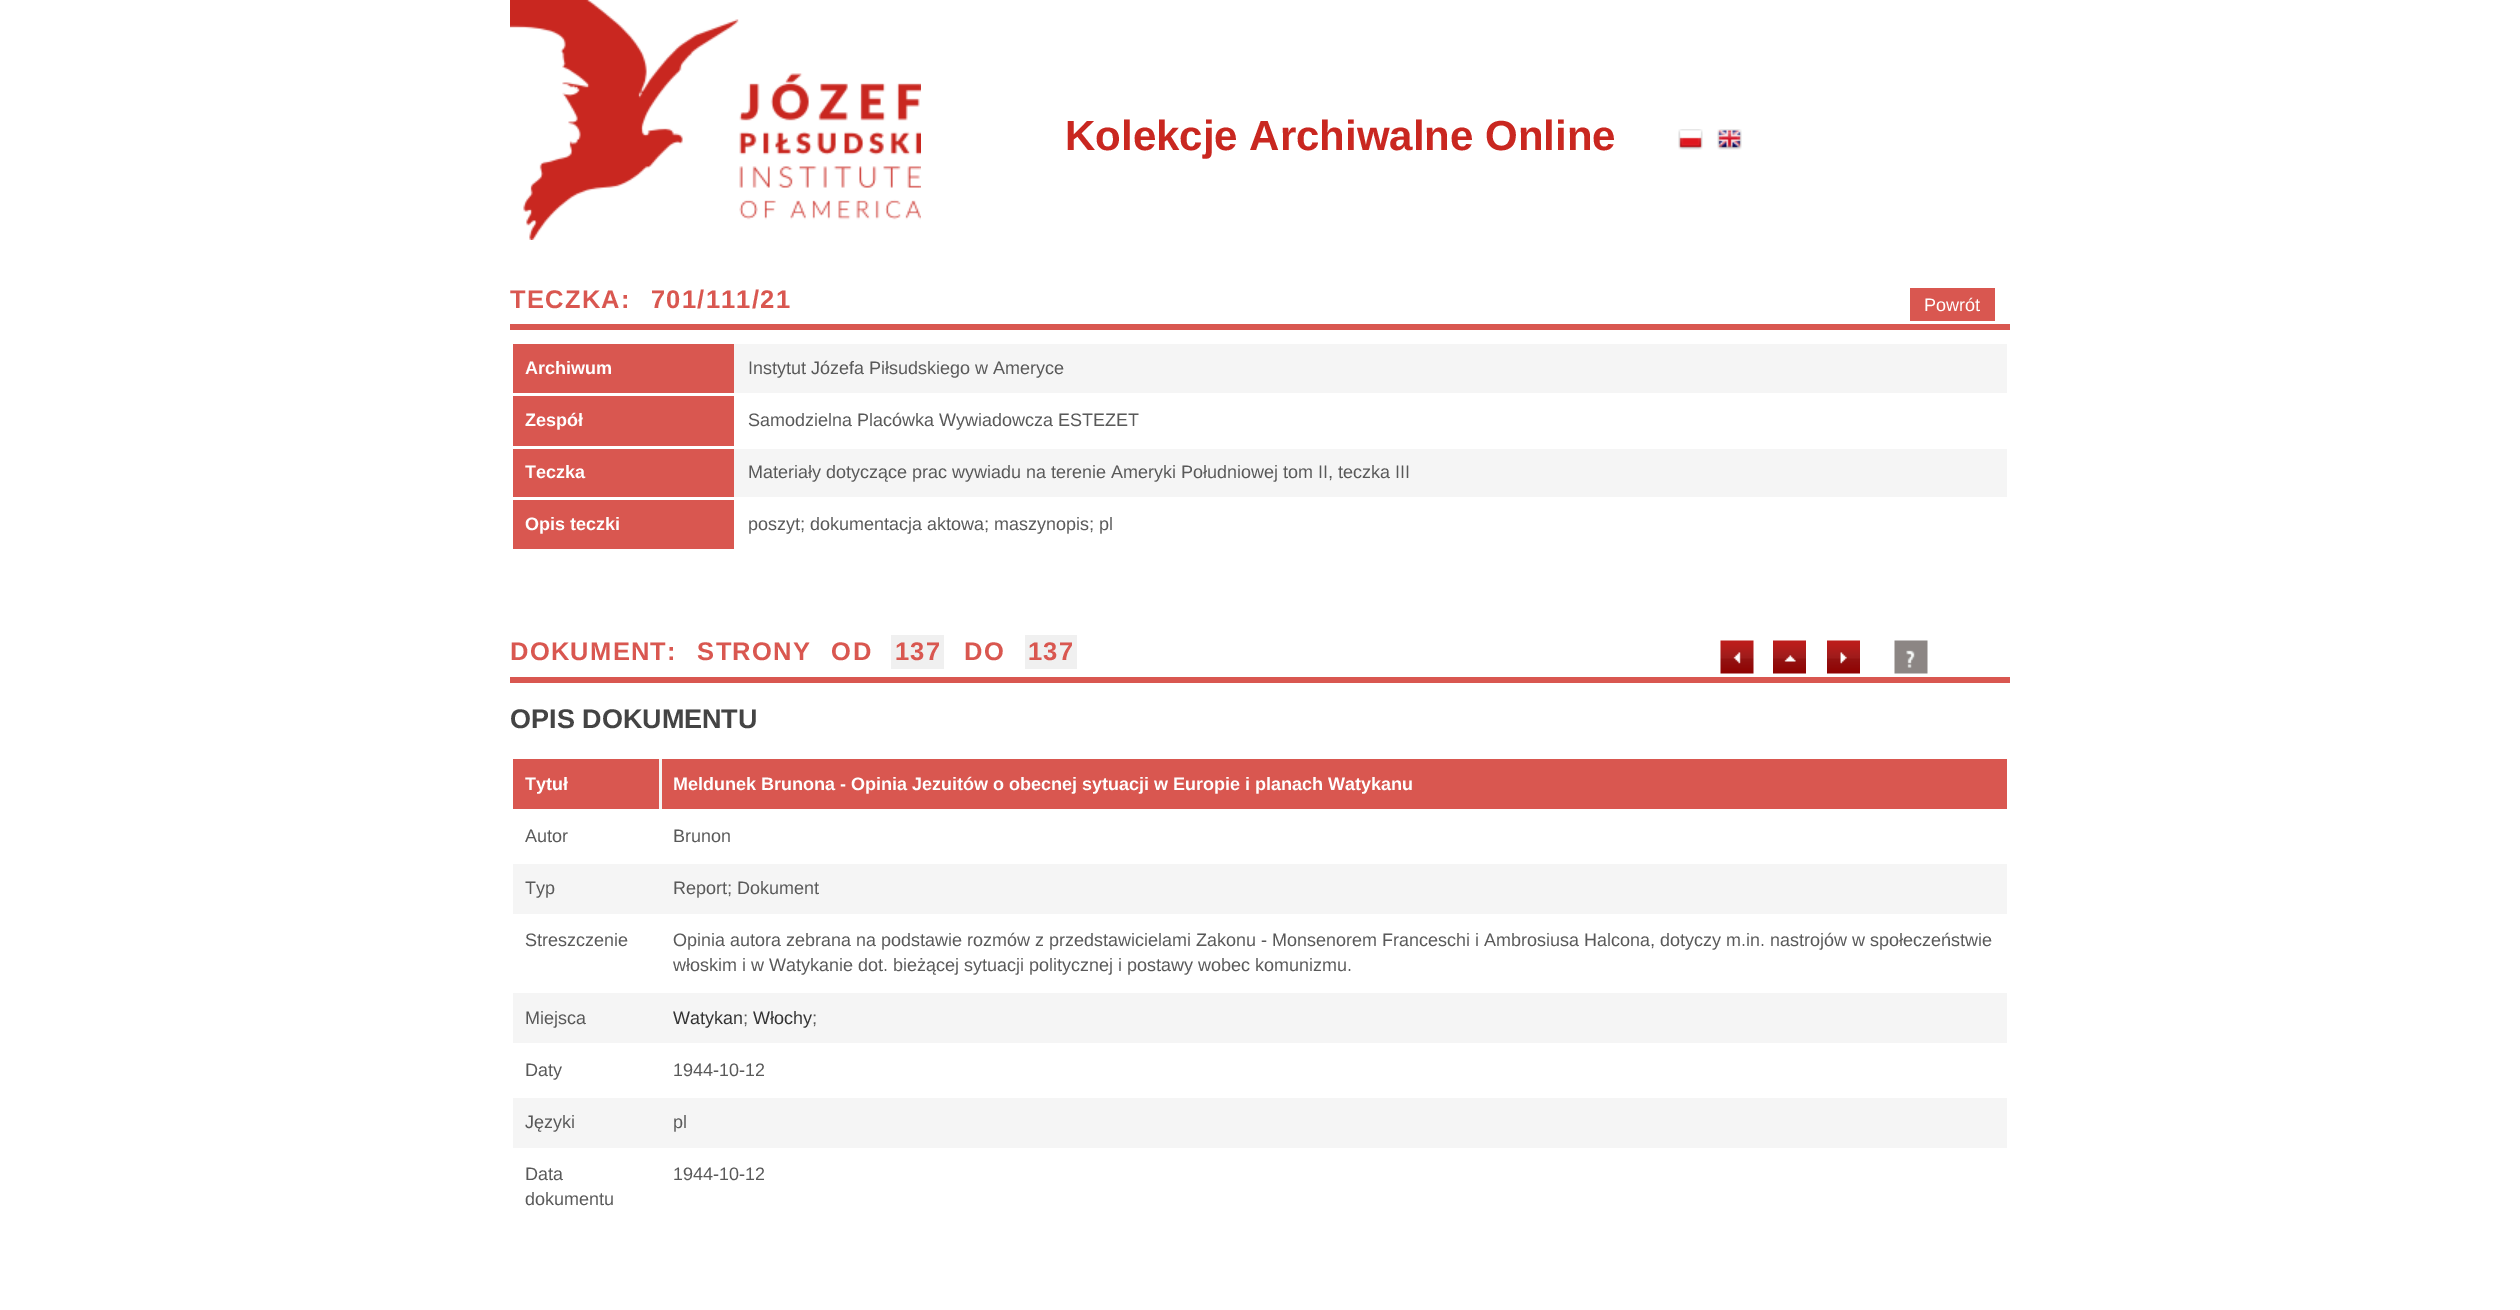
%!PS
<< /PageSize [2520 1310] >> setpagedevice
/rgb { 3 { 255 div 3 1 roll } repeat setrgbcolor } def
/font { [ exch dup neg 0 0 3 -1 roll 0 0 ] selectfont } def
/picture { 5 dict begin { /h /w /y /x /name } { exch def } forall
  gsave x y translate w h scale
  w h 8 [w 0 0 h 0 0] name (r) file false 3 colorimage grestore end } def
0 1310 translate 1 -1 scale
4 setmiterlimit
255 255 255 rgb
0 0 2520 1310 rectfill
(img/1.rgb) 510 0 411 240 picture
(img/2.rgb) 1678 129 25 21 picture
(img/3.rgb) 1717 129 25 21 picture
[
  [1910 288 85 33 217 87 80]
  [510 324 1500 6 217 87 80]
  [734 344 1273 49 245 245 245]
  [513 344 221 49 217 87 80]
  [513 396 221 50 217 87 80]
  [734 449 1273 48 245 245 245]
  [513 449 221 48 217 87 80]
  [513 500 221 49 217 87 80]
  [891 635 53 34 240 240 240]
  [1025 635 52 34 240 240 240]
] { aload pop rgb rectfill } forall
(img/4.rgb) 1720 640 34 34 picture
(img/5.rgb) 1773 640 33 34 picture
(img/6.rgb) 1827 640 33 34 picture
(img/7.rgb) 1894 640 34 34 picture
[
  [510 677 1500 6 217 87 80]
  [659 759 3 50 245 245 245]
  [513 759 146 50 217 87 80]
  [662 759 1345 50 217 87 80]
  [513 864 1494 50 245 245 245]
  [513 993 1494 50 245 245 245]
  [513 1098 1494 50 245 245 245]
] { aload pop rgb rectfill } forall
/LiberationSans-Bold 42 font
201 39 32 rgb
1065 150 moveto (Kolekcje Archiwalne Online) show
/LiberationSans-Bold 25.5 font
217 87 80 rgb
510 308 moveto 12 0 32 1.25 0 (TECZKA: 701/111/21) awidthshow
/LiberationSans-Regular 18 font
255 255 255 rgb
1924 311 moveto (Powrót) show
/LiberationSans-Bold 18 font
525 374 moveto (Archiwum) show
/LiberationSans-Regular 18 font
89 89 89 rgb
748 374 moveto (Instytut Józefa Piłsudskiego w Ameryce) show
/LiberationSans-Bold 18 font
255 255 255 rgb
525 426 moveto (Zespół) show
/LiberationSans-Regular 18 font
89 89 89 rgb
748 426 moveto (Samodzielna Placówka Wywiadowcza ESTEZET) show
/LiberationSans-Bold 18 font
255 255 255 rgb
525 478 moveto (Teczka) show
/LiberationSans-Regular 18 font
89 89 89 rgb
748 478 moveto (Materiały dotyczące prac wywiadu na terenie Ameryki Południowej tom II, teczka III) show
/LiberationSans-Bold 18 font
255 255 255 rgb
525 530 moveto (Opis teczki) show
/LiberationSans-Regular 18 font
89 89 89 rgb
748 530 moveto (poszyt; dokumentacja aktowa; maszynopis; pl) show
/LiberationSans-Bold 25.5 font
217 87 80 rgb
510 660 moveto 12 0 32 1.25 0 (DOKUMENT: STRONY OD) awidthshow
895 660 moveto 1.25 0 (137) ashow
964 660 moveto 1.25 0 (DO) ashow
1028 660 moveto 1.25 0 (137) ashow
/LiberationSans-Bold 27 font
68 68 68 rgb
510 728 moveto (OPIS DOKUMENTU) show
/LiberationSans-Bold 18 font
255 255 255 rgb
525 790 moveto (Tytuł) show
673 790 moveto (Meldunek Brunona - Opinia Jezuitów o obecnej sytuacji w Europie i planach Watykanu) show
/LiberationSans-Regular 18 font
89 89 89 rgb
[
  [(Autor) 525 842]
  [(Brunon) 673 842]
  [(Typ) 525 894]
  [(Report; Dokument) 673 894]
  [(Streszczenie) 525 946]
  [(Opinia autora zebrana na podstawie rozmów z przedstawicielami Zakonu - Monsenorem Franceschi i Ambrosiusa Halcona, dotyczy m.in. nastrojów w społeczeństwie) 673 946]
  [(włoskim i w Watykanie dot. bieżącej sytuacji politycznej i postawy wobec komunizmu.) 673 971]
  [(Miejsca) 525 1024]
] { aload pop moveto show } forall
51 51 51 rgb
673 1024 moveto (Watykan) show
89 89 89 rgb
743 1024 moveto (;) show
51 51 51 rgb
753 1024 moveto (Włochy) show
89 89 89 rgb
[
  [(;) 812 1024]
  [(Daty) 525 1076]
  [(1944-10-12) 673 1076]
  [(Języki) 525 1128]
  [(pl) 673 1128]
  [(Data) 525 1180]
  [(dokumentu) 525 1205]
  [(1944-10-12) 673 1180]
] { aload pop moveto show } forall
showpage
